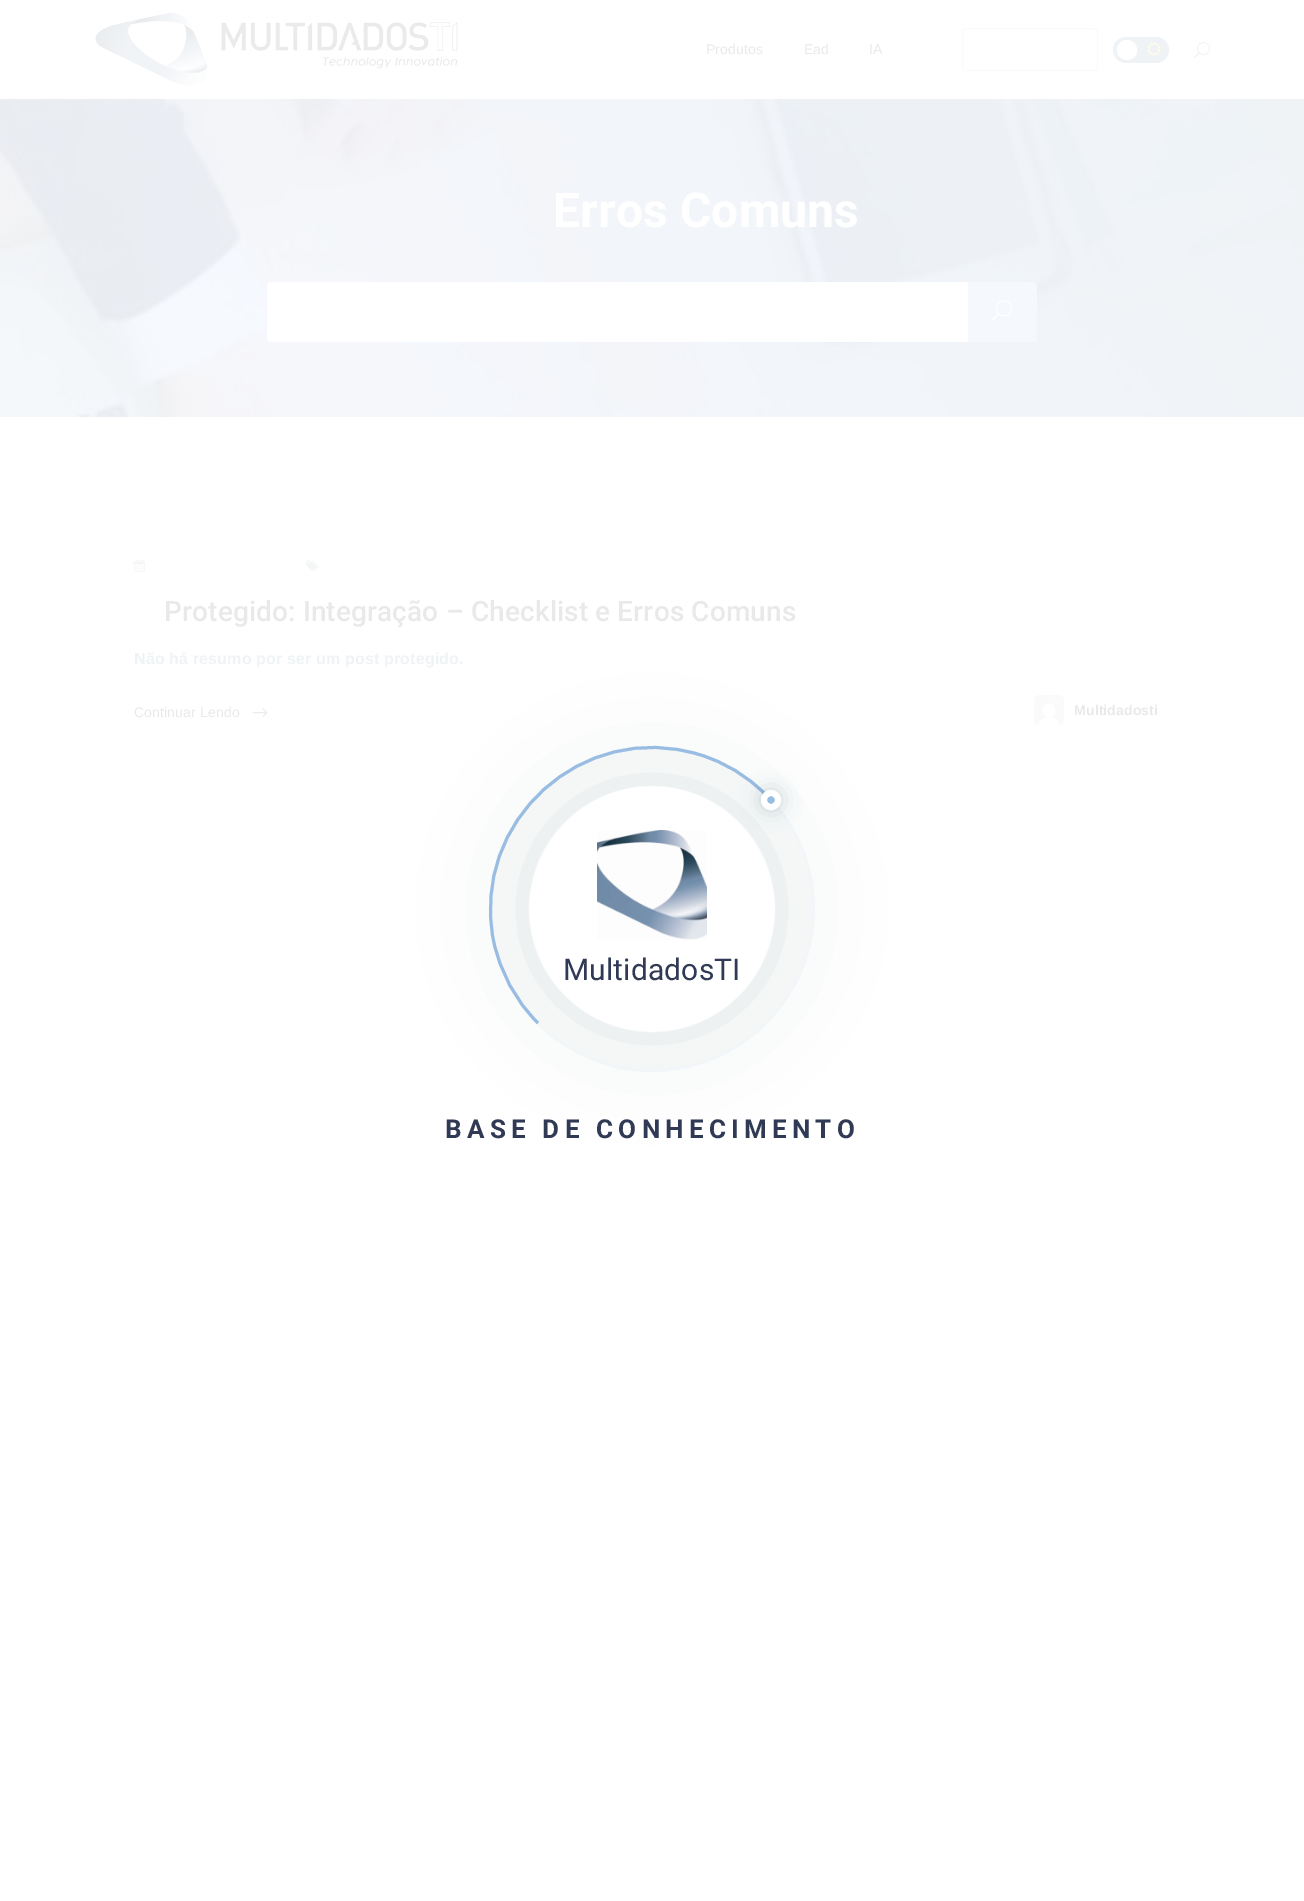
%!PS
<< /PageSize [1304 1901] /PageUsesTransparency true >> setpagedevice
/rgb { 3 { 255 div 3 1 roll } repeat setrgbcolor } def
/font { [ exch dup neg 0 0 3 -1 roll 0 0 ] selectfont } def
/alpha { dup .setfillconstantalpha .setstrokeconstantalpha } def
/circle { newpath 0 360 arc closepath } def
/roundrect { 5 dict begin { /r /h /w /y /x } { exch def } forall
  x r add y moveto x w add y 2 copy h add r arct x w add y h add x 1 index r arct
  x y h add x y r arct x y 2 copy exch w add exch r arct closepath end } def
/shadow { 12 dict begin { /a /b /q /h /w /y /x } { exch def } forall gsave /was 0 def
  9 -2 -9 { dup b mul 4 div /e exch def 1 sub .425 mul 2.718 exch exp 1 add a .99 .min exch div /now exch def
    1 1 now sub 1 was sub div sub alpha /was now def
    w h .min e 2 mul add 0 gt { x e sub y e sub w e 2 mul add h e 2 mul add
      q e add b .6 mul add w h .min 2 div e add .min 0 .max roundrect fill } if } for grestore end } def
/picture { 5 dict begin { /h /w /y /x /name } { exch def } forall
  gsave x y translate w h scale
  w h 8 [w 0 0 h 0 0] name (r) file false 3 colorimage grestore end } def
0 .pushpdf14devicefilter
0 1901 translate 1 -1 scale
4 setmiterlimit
255 255 255 rgb
0 0 1304 1901 rectfill
(img/1.rgb) 95 13 363 73 picture
250 250 251 rgb
962.5 28.5 135 42 3.5 roundrect stroke
239 243 245 rgb
1113 37 56 26 13 roundrect fill
255 255 255 rgb
1127 50 10 circle fill
(img/2.rgb) 1147 42 14 14 picture
(img/3.rgb) 1194 42 16 16 picture
(img/4.rgb) 0 99 1304 318 picture
245 248 252 rgb
967 282 moveto 1033 282 lineto 1035 282 1037 284 1037 286 curveto 1037 338 lineto 1037 340 1035 342 1033 342 curveto 967 342 lineto closepath fill
255 255 255 rgb
271 282 moveto 968 282 lineto 968 342 lineto 271 342 lineto 269 342 267 340 267 338 curveto 267 286 lineto 267 284 269 282 271 282 curveto closepath fill
(img/5.rgb) 992 300 20 21 picture
(img/6.rgb) 134 559 12 13 picture
(img/7.rgb) 306 560 13 11 picture
(img/8.rgb) 252 708 16 9 picture
(img/9.rgb) 1034 695 30 30 picture
gsave
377 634 moveto 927 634 lineto 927 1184 lineto 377 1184 lineto closepath 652 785 moveto 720.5 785 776 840.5 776 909 curveto 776 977.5 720.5 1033 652 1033 curveto 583.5 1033 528 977.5 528 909 curveto 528 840.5 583.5 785 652 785 curveto closepath eoclip newpath
4 46 56 rgb
528 785 248 248 124 50 0.13 shadow
grestore
0.91 alpha
238 243 244 rgb
652 909 123.5 circle stroke
1 alpha
(img/10.rgb) 597 830 110 110 picture
/LiberationSans-Regular 14 font
233 233 233 rgb
706 54 moveto 0.15 0 (Produtos) ashow
804 54 moveto 0.15 0 (Ead) ashow
869 54 moveto 0.15 0 (IA) ashow
/Roboto-Bold 48 font
255 255 255 rgb
553 227 moveto 0.15 0 (Erros Comuns) ashow
/Roboto-Medium 28 font
233 233 233 rgb
164 621 moveto 0.15 0 (Protegido: Integração – Checklist e Erros Comuns) ashow
/LiberationSans-Bold 16 font
239 243 245 rgb
134 664 moveto 0.15 0 (Não há resumo por ser um post protegido.) ashow
/LiberationSans-Regular 14 font
233 233 233 rgb
134 717 moveto 0.15 0 (Continuar Lendo) ashow
/LiberationSans-Bold 14 font
1074 715 moveto 0.15 0 (Multidadosti) ashow
/Roboto-Regular 30 font
48 58 85 rgb
563 980 moveto 0.15 0 (MultidadosTI) ashow
242 246 248 rgb
3 setlinewidth
766 795 moveto 785 813.5 799 836.5 806.5 862 curveto 842 978.5 739.5 1091 620.5 1067.5 curveto 589 1061 560 1045.5 538 1023 curveto stroke
0.91 alpha
143 182 224 rgb
538 1023 moveto 515.5 1001 500 972 493.5 940.5 curveto 470 821.5 582.5 719 699 754.5 curveto 724.5 762 747.5 776 766 795 curveto stroke
1 alpha
25 64 73 rgb
761 790 20 20 10 10 0.2 shadow
152 188 226 rgb
771 800 7 circle gsave fill grestore
254 255 254 rgb
6 setlinewidth
stroke
/Roboto-Bold 26 font
48 58 85 rgb
445 1138 moveto 5.25 0 (BASE DE CONHECIMENTO) ashow
.poppdf14devicefilter showpage
